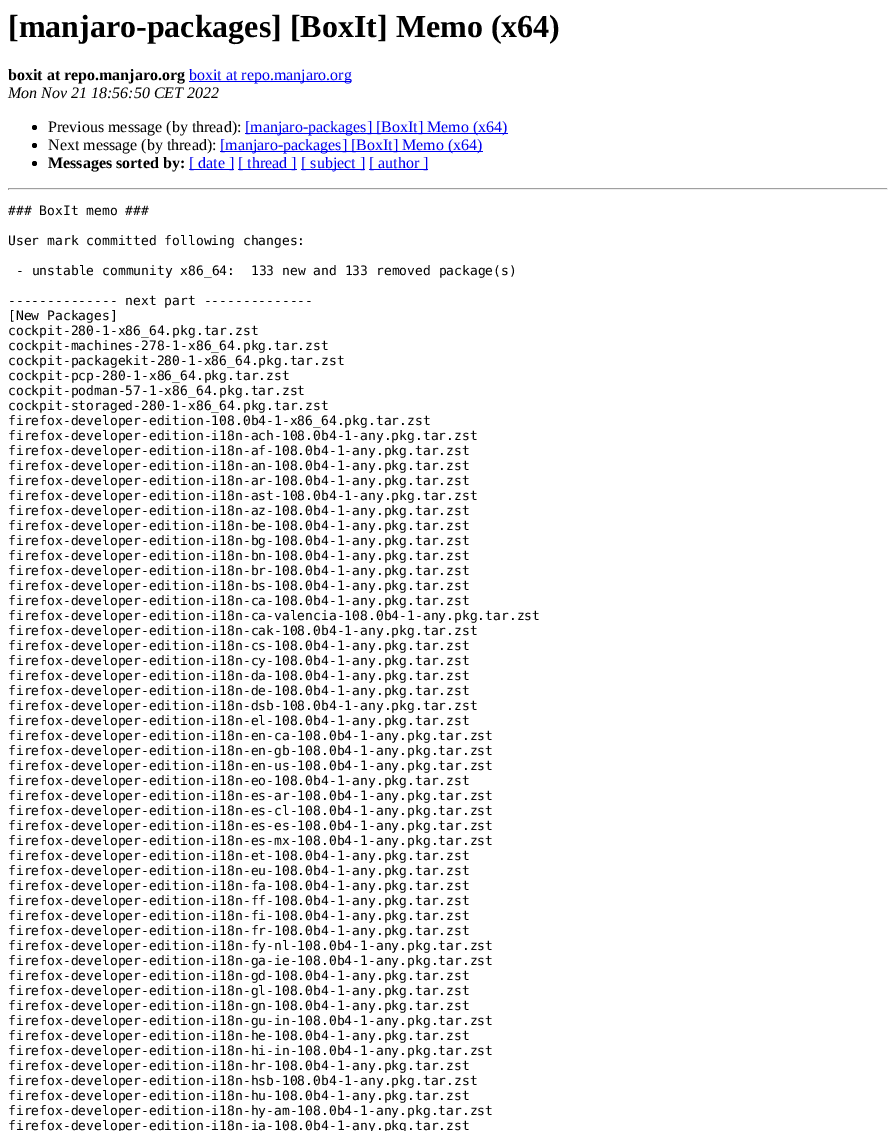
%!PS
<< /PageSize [896 1131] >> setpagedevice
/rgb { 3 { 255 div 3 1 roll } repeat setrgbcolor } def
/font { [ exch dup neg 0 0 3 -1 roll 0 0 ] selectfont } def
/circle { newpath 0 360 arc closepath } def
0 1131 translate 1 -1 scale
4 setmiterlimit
255 255 255 rgb
0 0 896 1131 rectfill
0 0 238 rgb
189 81 162 1 rectfill
0 0 0 rgb
34.5 127.5 2.5 circle fill
0 0 238 rgb
245 133 263 1 rectfill
0 0 0 rgb
34.5 145.5 2.5 circle fill
0 0 238 rgb
220 151 263 1 rectfill
0 0 0 rgb
34.5 163.5 2.5 circle fill
[
  [189 169 45 1 0 0 238]
  [238 169 59 1 0 0 238]
  [301 169 64 1 0 0 238]
  [369 169 59 1 0 0 238]
  [8 188 880 1 159 159 159]
  [887 188 1 2 238 238 238]
  [8 189 880 1 238 238 238]
  [8 188 1 2 159 159 159]
] { aload pop rgb rectfill } forall
/LiberationSerif-Bold 32 font
0 0 0 rgb
8 37 moveto ([manjaro-packages] [BoxIt] Memo \(x64\)) show
/LiberationSerif-Bold 16 font
8 80 moveto (boxit at repo.manjaro.org) show
/LiberationSerif-Regular 16 font
0 0 238 rgb
189 80 moveto (boxit at repo.manjaro.org) show
/LiberationSerif-Italic 16 font
0 0 0 rgb
8 98 moveto (Mon Nov 21 18:56:50 CET 2022) show
/LiberationSerif-Regular 16 font
48 132 moveto (Previous message \(by thread\):) show
0 0 238 rgb
245 132 moveto ([manjaro-packages] [BoxIt] Memo \(x64\)) show
0 0 0 rgb
48 150 moveto (Next message \(by thread\):) show
0 0 238 rgb
220 150 moveto ([manjaro-packages] [BoxIt] Memo \(x64\)) show
/LiberationSerif-Bold 16 font
0 0 0 rgb
48 168 moveto (Messages sorted by:) show
/LiberationSerif-Regular 16 font
0 0 238 rgb
[
  [([ date ]) 189 168]
  [([ thread ]) 238 168]
  [([ subject ]) 301 168]
  [([ author ]) 369 168]
] { aload pop moveto show } forall
/DejaVuSansMono-Regular 13 font
0 0 0 rgb
[
  [(### BoxIt memo ###) 8 215]
  [(User mark committed following changes:) 8 245]
  [(- unstable community x86_64:  133 new and 133 removed package\(s\)) 16 275]
  [(-------------- next part --------------) 8 305]
  [([New Packages]) 8 320]
  [(cockpit-280-1-x86_64.pkg.tar.zst) 8 335]
  [(cockpit-machines-278-1-x86_64.pkg.tar.zst) 8 350]
  [(cockpit-packagekit-280-1-x86_64.pkg.tar.zst) 8 365]
  [(cockpit-pcp-280-1-x86_64.pkg.tar.zst) 8 380]
  [(cockpit-podman-57-1-x86_64.pkg.tar.zst) 8 395]
  [(cockpit-storaged-280-1-x86_64.pkg.tar.zst) 8 410]
  [(firefox-developer-edition-108.0b4-1-x86_64.pkg.tar.zst) 8 425]
  [(firefox-developer-edition-i18n-ach-108.0b4-1-any.pkg.tar.zst) 8 440]
  [(firefox-developer-edition-i18n-af-108.0b4-1-any.pkg.tar.zst) 8 455]
  [(firefox-developer-edition-i18n-an-108.0b4-1-any.pkg.tar.zst) 8 470]
  [(firefox-developer-edition-i18n-ar-108.0b4-1-any.pkg.tar.zst) 8 485]
  [(firefox-developer-edition-i18n-ast-108.0b4-1-any.pkg.tar.zst) 8 500]
  [(firefox-developer-edition-i18n-az-108.0b4-1-any.pkg.tar.zst) 8 515]
  [(firefox-developer-edition-i18n-be-108.0b4-1-any.pkg.tar.zst) 8 530]
  [(firefox-developer-edition-i18n-bg-108.0b4-1-any.pkg.tar.zst) 8 545]
  [(firefox-developer-edition-i18n-bn-108.0b4-1-any.pkg.tar.zst) 8 560]
  [(firefox-developer-edition-i18n-br-108.0b4-1-any.pkg.tar.zst) 8 575]
  [(firefox-developer-edition-i18n-bs-108.0b4-1-any.pkg.tar.zst) 8 590]
  [(firefox-developer-edition-i18n-ca-108.0b4-1-any.pkg.tar.zst) 8 605]
  [(firefox-developer-edition-i18n-ca-valencia-108.0b4-1-any.pkg.tar.zst) 8 620]
  [(firefox-developer-edition-i18n-cak-108.0b4-1-any.pkg.tar.zst) 8 635]
  [(firefox-developer-edition-i18n-cs-108.0b4-1-any.pkg.tar.zst) 8 650]
  [(firefox-developer-edition-i18n-cy-108.0b4-1-any.pkg.tar.zst) 8 665]
  [(firefox-developer-edition-i18n-da-108.0b4-1-any.pkg.tar.zst) 8 680]
  [(firefox-developer-edition-i18n-de-108.0b4-1-any.pkg.tar.zst) 8 695]
  [(firefox-developer-edition-i18n-dsb-108.0b4-1-any.pkg.tar.zst) 8 710]
  [(firefox-developer-edition-i18n-el-108.0b4-1-any.pkg.tar.zst) 8 725]
  [(firefox-developer-edition-i18n-en-ca-108.0b4-1-any.pkg.tar.zst) 8 740]
  [(firefox-developer-edition-i18n-en-gb-108.0b4-1-any.pkg.tar.zst) 8 755]
  [(firefox-developer-edition-i18n-en-us-108.0b4-1-any.pkg.tar.zst) 8 770]
  [(firefox-developer-edition-i18n-eo-108.0b4-1-any.pkg.tar.zst) 8 785]
  [(firefox-developer-edition-i18n-es-ar-108.0b4-1-any.pkg.tar.zst) 8 800]
  [(firefox-developer-edition-i18n-es-cl-108.0b4-1-any.pkg.tar.zst) 8 815]
  [(firefox-developer-edition-i18n-es-es-108.0b4-1-any.pkg.tar.zst) 8 830]
  [(firefox-developer-edition-i18n-es-mx-108.0b4-1-any.pkg.tar.zst) 8 845]
  [(firefox-developer-edition-i18n-et-108.0b4-1-any.pkg.tar.zst) 8 860]
  [(firefox-developer-edition-i18n-eu-108.0b4-1-any.pkg.tar.zst) 8 875]
  [(firefox-developer-edition-i18n-fa-108.0b4-1-any.pkg.tar.zst) 8 890]
  [(firefox-developer-edition-i18n-ff-108.0b4-1-any.pkg.tar.zst) 8 905]
  [(firefox-developer-edition-i18n-fi-108.0b4-1-any.pkg.tar.zst) 8 920]
  [(firefox-developer-edition-i18n-fr-108.0b4-1-any.pkg.tar.zst) 8 935]
  [(firefox-developer-edition-i18n-fy-nl-108.0b4-1-any.pkg.tar.zst) 8 950]
  [(firefox-developer-edition-i18n-ga-ie-108.0b4-1-any.pkg.tar.zst) 8 965]
  [(firefox-developer-edition-i18n-gd-108.0b4-1-any.pkg.tar.zst) 8 980]
  [(firefox-developer-edition-i18n-gl-108.0b4-1-any.pkg.tar.zst) 8 995]
  [(firefox-developer-edition-i18n-gn-108.0b4-1-any.pkg.tar.zst) 8 1010]
  [(firefox-developer-edition-i18n-gu-in-108.0b4-1-any.pkg.tar.zst) 8 1025]
  [(firefox-developer-edition-i18n-he-108.0b4-1-any.pkg.tar.zst) 8 1040]
  [(firefox-developer-edition-i18n-hi-in-108.0b4-1-any.pkg.tar.zst) 8 1055]
  [(firefox-developer-edition-i18n-hr-108.0b4-1-any.pkg.tar.zst) 8 1070]
  [(firefox-developer-edition-i18n-hsb-108.0b4-1-any.pkg.tar.zst) 8 1085]
  [(firefox-developer-edition-i18n-hu-108.0b4-1-any.pkg.tar.zst) 8 1100]
  [(firefox-developer-edition-i18n-hy-am-108.0b4-1-any.pkg.tar.zst) 8 1115]
  [(firefox-developer-edition-i18n-ia-108.0b4-1-any.pkg.tar.zst) 8 1130]
] { aload pop moveto show } forall
showpage
